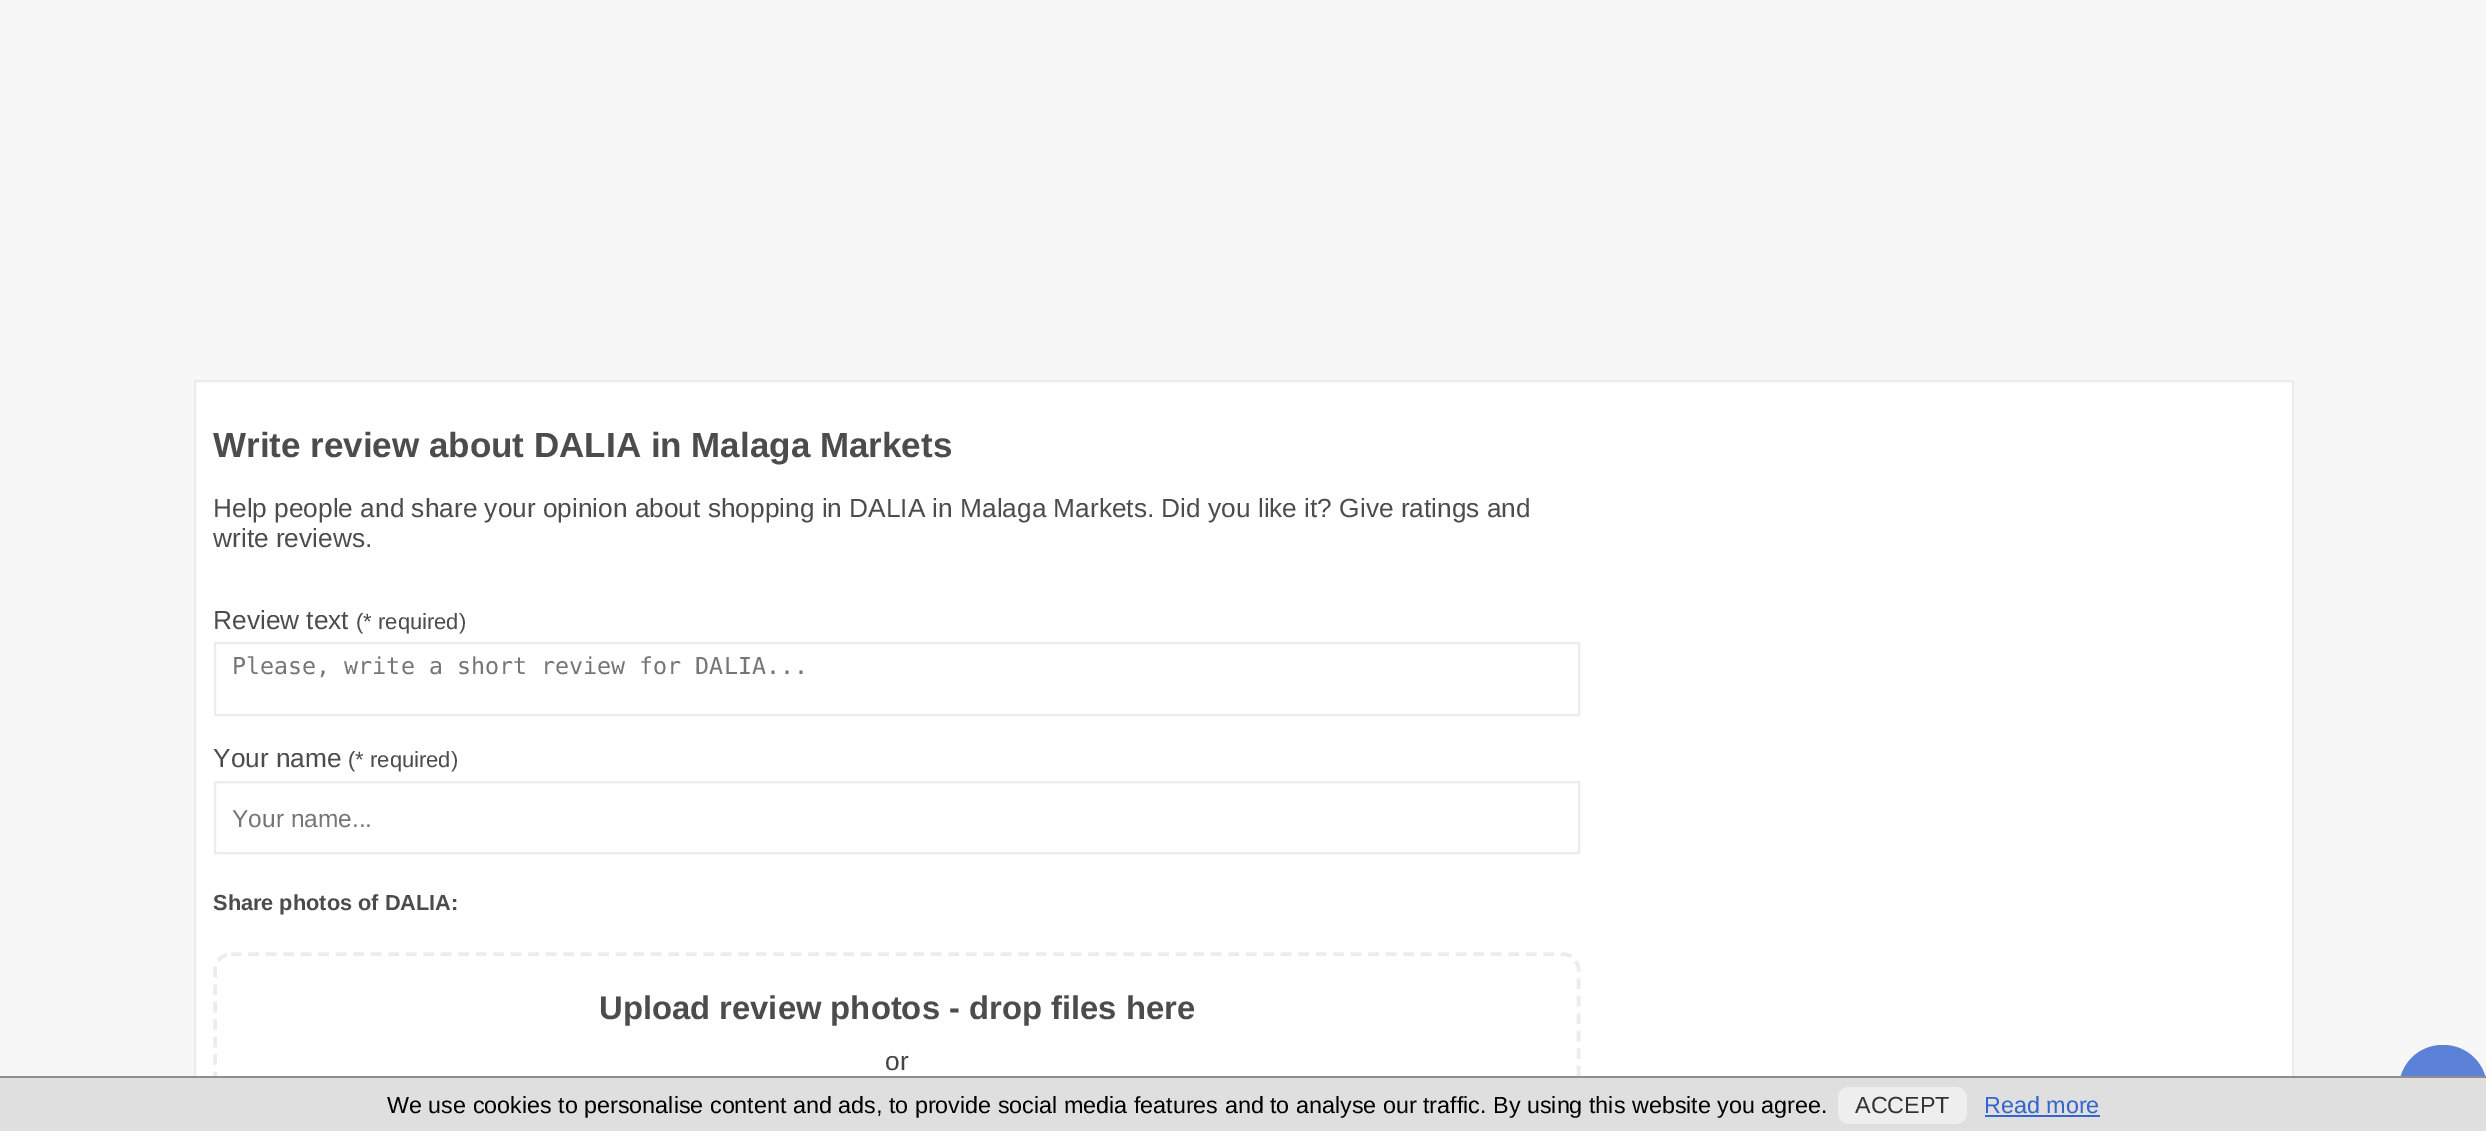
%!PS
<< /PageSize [2486 1131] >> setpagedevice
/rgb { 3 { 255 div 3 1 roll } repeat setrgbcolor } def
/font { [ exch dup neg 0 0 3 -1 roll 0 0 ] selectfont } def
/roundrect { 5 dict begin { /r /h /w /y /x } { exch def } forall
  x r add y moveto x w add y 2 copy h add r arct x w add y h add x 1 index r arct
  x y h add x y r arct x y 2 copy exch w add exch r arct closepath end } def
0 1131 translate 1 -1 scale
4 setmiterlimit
247 247 247 rgb
0 0 2486 1131 rectfill
255 255 255 rgb
196 382 2096 694 rectfill
236 236 236 rgb
2 setlinewidth
195 381 2098 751 rectstroke
215 643 1364 72 rectstroke
215 782 1364 71 rectstroke
3.5 setlinewidth
[10.5 7] 0 setdash
231 954 moveto 1563 954 lineto 1571.5 954 1578.5 961 1578.5 969.5 curveto 1578.5 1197 lineto 1578.5 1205.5 1571.5 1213 1563 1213 curveto 231 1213 lineto 222.5 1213 215 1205.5 215 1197 curveto 215 969.5 lineto 215 961 222.5 954 231 954 curveto closepath stroke
91 130 214 rgb
2399 1045 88 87 43.5 roundrect fill
223 223 223 rgb
0 1078 2486 53 rectfill
142 142 142 rgb
0 1076 2486 2 rectfill
238 238 238 rgb
1838 1087 129 37 11 roundrect fill
52 101 206 rgb
1985 1115 115 2 rectfill
/LiberationSans-Bold 35 font
76 76 76 rgb
213 457 moveto (Write review about DALIA in Malaga Markets) show
/LiberationSans-Regular 26.25 font
[
  [(Help people and share your opinion about shopping in DALIA in Malaga Markets. Did you like it? Give ratings and) 213 517]
  [(write reviews.) 213 547]
  [(Review text) 213 629]
] { aload pop moveto show } forall
/LiberationSans-Regular 22 font
356 629 moveto (\(* required\)) show
/DejaVuSansMono-Regular 23.33 font
117 117 117 rgb
232 674 moveto (Please, write a short review for DALIA...) show
/LiberationSans-Regular 26.25 font
76 76 76 rgb
213 767 moveto (Your name) show
/LiberationSans-Regular 22 font
348 767 moveto (\(* required\)) show
/LiberationSans-Regular 24.5 font
117 117 117 rgb
232 827 moveto (Your name...) show
/LiberationSans-Bold 21.75 font
76 76 76 rgb
213 910 moveto (Share photos of DALIA:) show
/LiberationSans-Bold 32.8 font
599 1019 moveto (Upload review photos - drop files here) show
/LiberationSans-Regular 26.25 font
68 68 68 rgb
885 1070 moveto (or) show
/LiberationSans-Regular 23.33 font
0 0 0 rgb
387 1113 moveto (We use cookies to personalise content and ads, to provide social media features and to analyse our traffic. By using this website you agree.) show
51 51 51 rgb
1855 1113 moveto (ACCEPT) show
52 101 206 rgb
1984 1113 moveto (Read more) show
showpage
